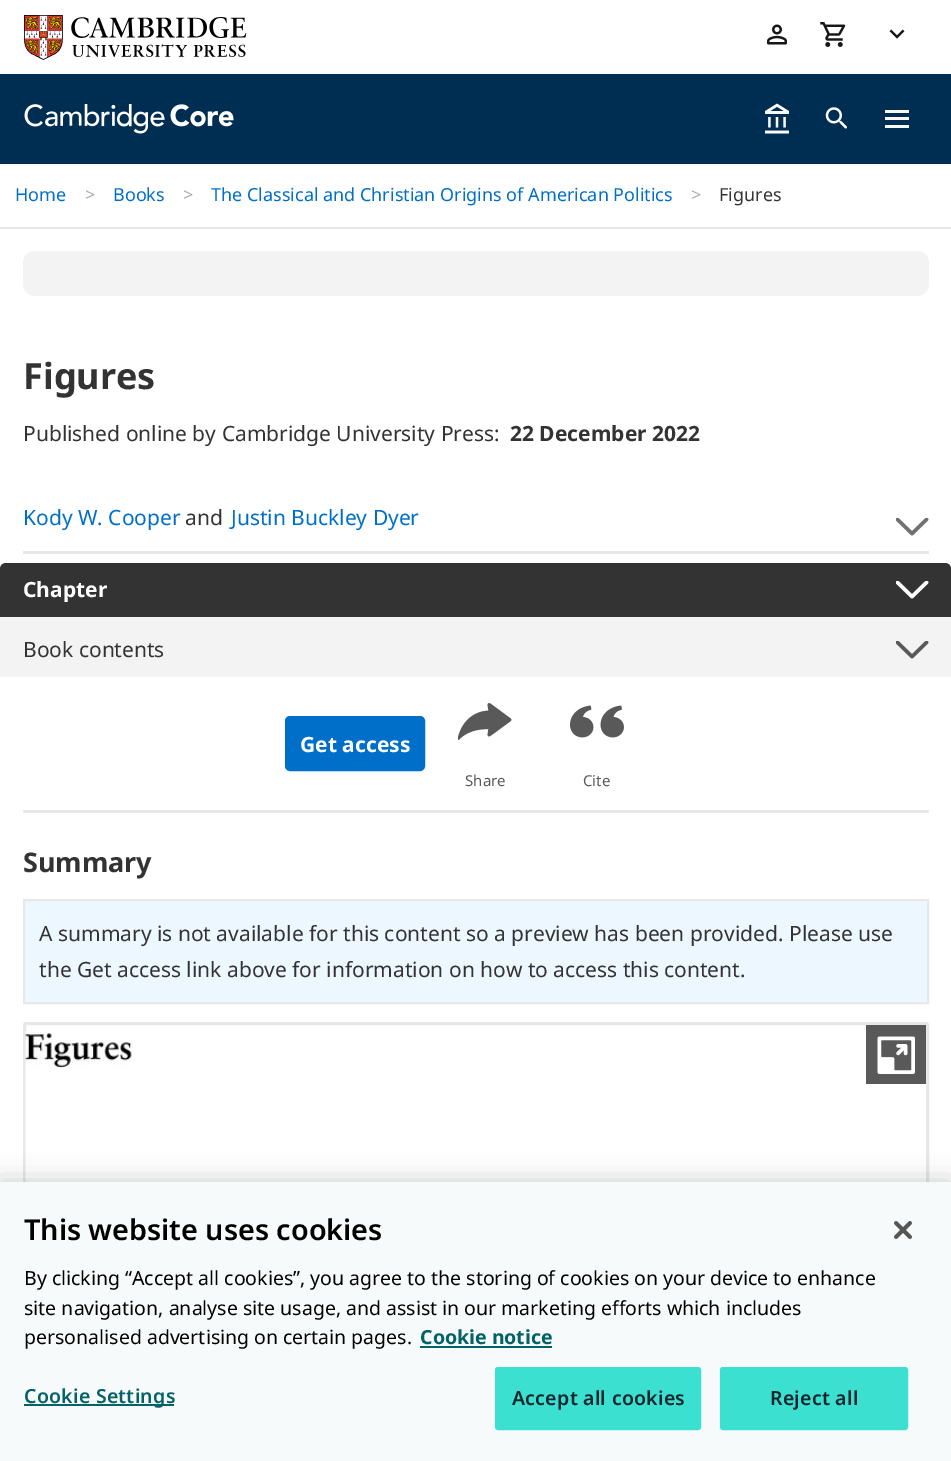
%!PS
<< /PageSize [951 1461] /PageUsesTransparency true >> setpagedevice
/rgb { 3 { 255 div 3 1 roll } repeat setrgbcolor } def
/font { [ exch dup neg 0 0 3 -1 roll 0 0 ] selectfont } def
/alpha { dup .setfillconstantalpha .setstrokeconstantalpha } def
/roundrect { 5 dict begin { /r /h /w /y /x } { exch def } forall
  x r add y moveto x w add y 2 copy h add r arct x w add y h add x 1 index r arct
  x y h add x y r arct x y 2 copy exch w add exch r arct closepath end } def
/shadow { 12 dict begin { /a /b /q /h /w /y /x } { exch def } forall gsave /was 0 def
  9 -2 -9 { dup b mul 4 div /e exch def 1 sub .425 mul 2.718 exch exp 1 add a .99 .min exch div /now exch def
    1 1 now sub 1 was sub div sub alpha /was now def
    w h .min e 2 mul add 0 gt { x e sub y e sub w e 2 mul add h e 2 mul add
      q e add b .6 mul add w h .min 2 div e add .min 0 .max roundrect fill } if } for grestore end } def
/picture { 5 dict begin { /h /w /y /x /name } { exch def } forall
  gsave x y translate w h scale
  w h 8 [w 0 0 h 0 0] name (r) file false 3 colorimage grestore end } def
0 .pushpdf14devicefilter
0 1461 translate 1 -1 scale
4 setmiterlimit
255 255 255 rgb
0 0 951 1461 rectfill
(img/1.rgb) 24 15 223 45 picture
(img/2.rgb) 767 24 20 21 picture
(img/3.rgb) 820 22 26 25 picture
(img/4.rgb) 889 29 16 10 picture
0 45 82 rgb
0 74 951 90 rectfill
(img/5.rgb) 24 104 210 30 picture
(img/6.rgb) 765 103 24 31 picture
(img/7.rgb) 825 107 22 22 picture
[
  [885 110 24 3 250 250 250]
  [885 117 24 3 250 250 250]
  [885 125 24 3 250 250 250]
  [0 227 951 2 232 232 232]
] { aload pop rgb rectfill } forall
243 243 243 rgb
23 251 906 45 12 roundrect fill
(img/8.rgb) 896 518 33 18 picture
232 232 232 rgb
23 551 906 3 rectfill
51 51 51 rgb
6 563 moveto 945 563 lineto 948.5 563 951 565.5 951 569 curveto 951 617 lineto 0 617 lineto 0 569 lineto 0 565.5 2.5 563 6 563 curveto closepath fill
(img/9.rgb) 896 581 33 18 picture
243 243 243 rgb
0 617 951 60 rectfill
(img/10.rgb) 896 641 33 18 picture
0 111 202 rgb
286 717 138 53 4 roundrect gsave fill grestore
2 setlinewidth
stroke
(img/11.rgb) 458 703 54 37 picture
(img/12.rgb) 570 705 54 33 picture
232 232 232 rgb
23 810 906 3 rectfill
237 247 255 rgb
24 900 moveto 928 900 lineto 928 1003 lineto 24 1003 lineto closepath gsave fill grestore
232 232 232 rgb
stroke
3 setlinewidth
24.5 1023.5 903 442 1.5 roundrect stroke
(img/14.rgb) 25 1032 901 150 picture
(img/13.rgb) 866 1025 60 59 picture
0 0 0 rgb
0 1182 951 279 0 13.5 0.2 shadow
[
  [0 1182 951 279 247 250 250]
  [420 1346 132 2 3 98 104]
  [24 1404 150 2 3 98 104]
] { aload pop rgb rectfill } forall
59 224 208 rgb
496 1368 204 61 2 roundrect gsave fill grestore
2 setlinewidth
stroke
721 1368 186 61 2 roundrect gsave fill grestore
stroke
(img/15.rgb) 894 1221 18 18 picture
/NotoSans-Regular 18 font
0 111 202 rgb
15 201 moveto (Home) show
170 170 170 rgb
85 201 moveto (>) show
0 111 202 rgb
113 201 moveto (Books) show
170 170 170 rgb
183 201 moveto (>) show
0 111 202 rgb
211 201 moveto (The Classical and Christian Origins of American Politics) show
170 170 170 rgb
691 201 moveto (>) show
51 51 51 rgb
719 201 moveto (Figures) show
/NotoSans-Bold 36 font
23 389 moveto (Figures) show
/NotoSans-Regular 21 font
23 441 moveto (Published online by Cambridge University Press:) show
/NotoSans-Bold 21 font
510 441 moveto (22 December 2022) show
/NotoSans-Regular 21 font
0 111 202 rgb
23 525 moveto (Kody W. Cooper) show
51 51 51 rgb
185 525 moveto (and) show
0 111 202 rgb
231 525 moveto (Justin Buckley Dyer) show
/NotoSans-Bold 21 font
255 255 255 rgb
23 597 moveto (Chapter) show
/NotoSans-Regular 21 font
51 51 51 rgb
23 657 moveto (Book contents) show
/NotoSans-Bold 21 font
255 255 255 rgb
300 752 moveto (Get access) show
/NotoSans-Regular 15 font
89 89 89 rgb
465 786 moveto (Share) show
583 786 moveto (Cite) show
/NotoSans-Bold 27 font
51 51 51 rgb
23 872 moveto (Summary) show
/NotoSans-Regular 21 font
39 941 moveto (A summary is not available for this content so a preview has been provided. Please use) show
39 977 moveto (the Get access link above for information on how to access this content.) show
/NotoSans-SemiBold 28.75 font
0 0 0 rgb
24 1240 moveto (This website uses cookies) show
/NotoSans-Regular 19.5 font
[
  [(By clicking “Accept all cookies”, you agree to the storing of cookies on your device to enhance) 24 1285]
  [(site navigation, analyse site usage, and assist in our marketing efforts which includes) 24 1315]
  [(personalised advertising on certain pages.) 24 1344]
] { aload pop moveto show } forall
/NotoSans-Bold 19.5 font
3 98 104 rgb
420 1344 moveto (Cookie notice) show
/NotoSans-SemiBold 19.5 font
24 1403 moveto 0.25 0 (Cookie Settings) ashow
17 39 48 rgb
512 1405 moveto 0.25 0 (Accept all cookies) ashow
770 1405 moveto 0.25 0 (Reject all) ashow
.poppdf14devicefilter showpage
